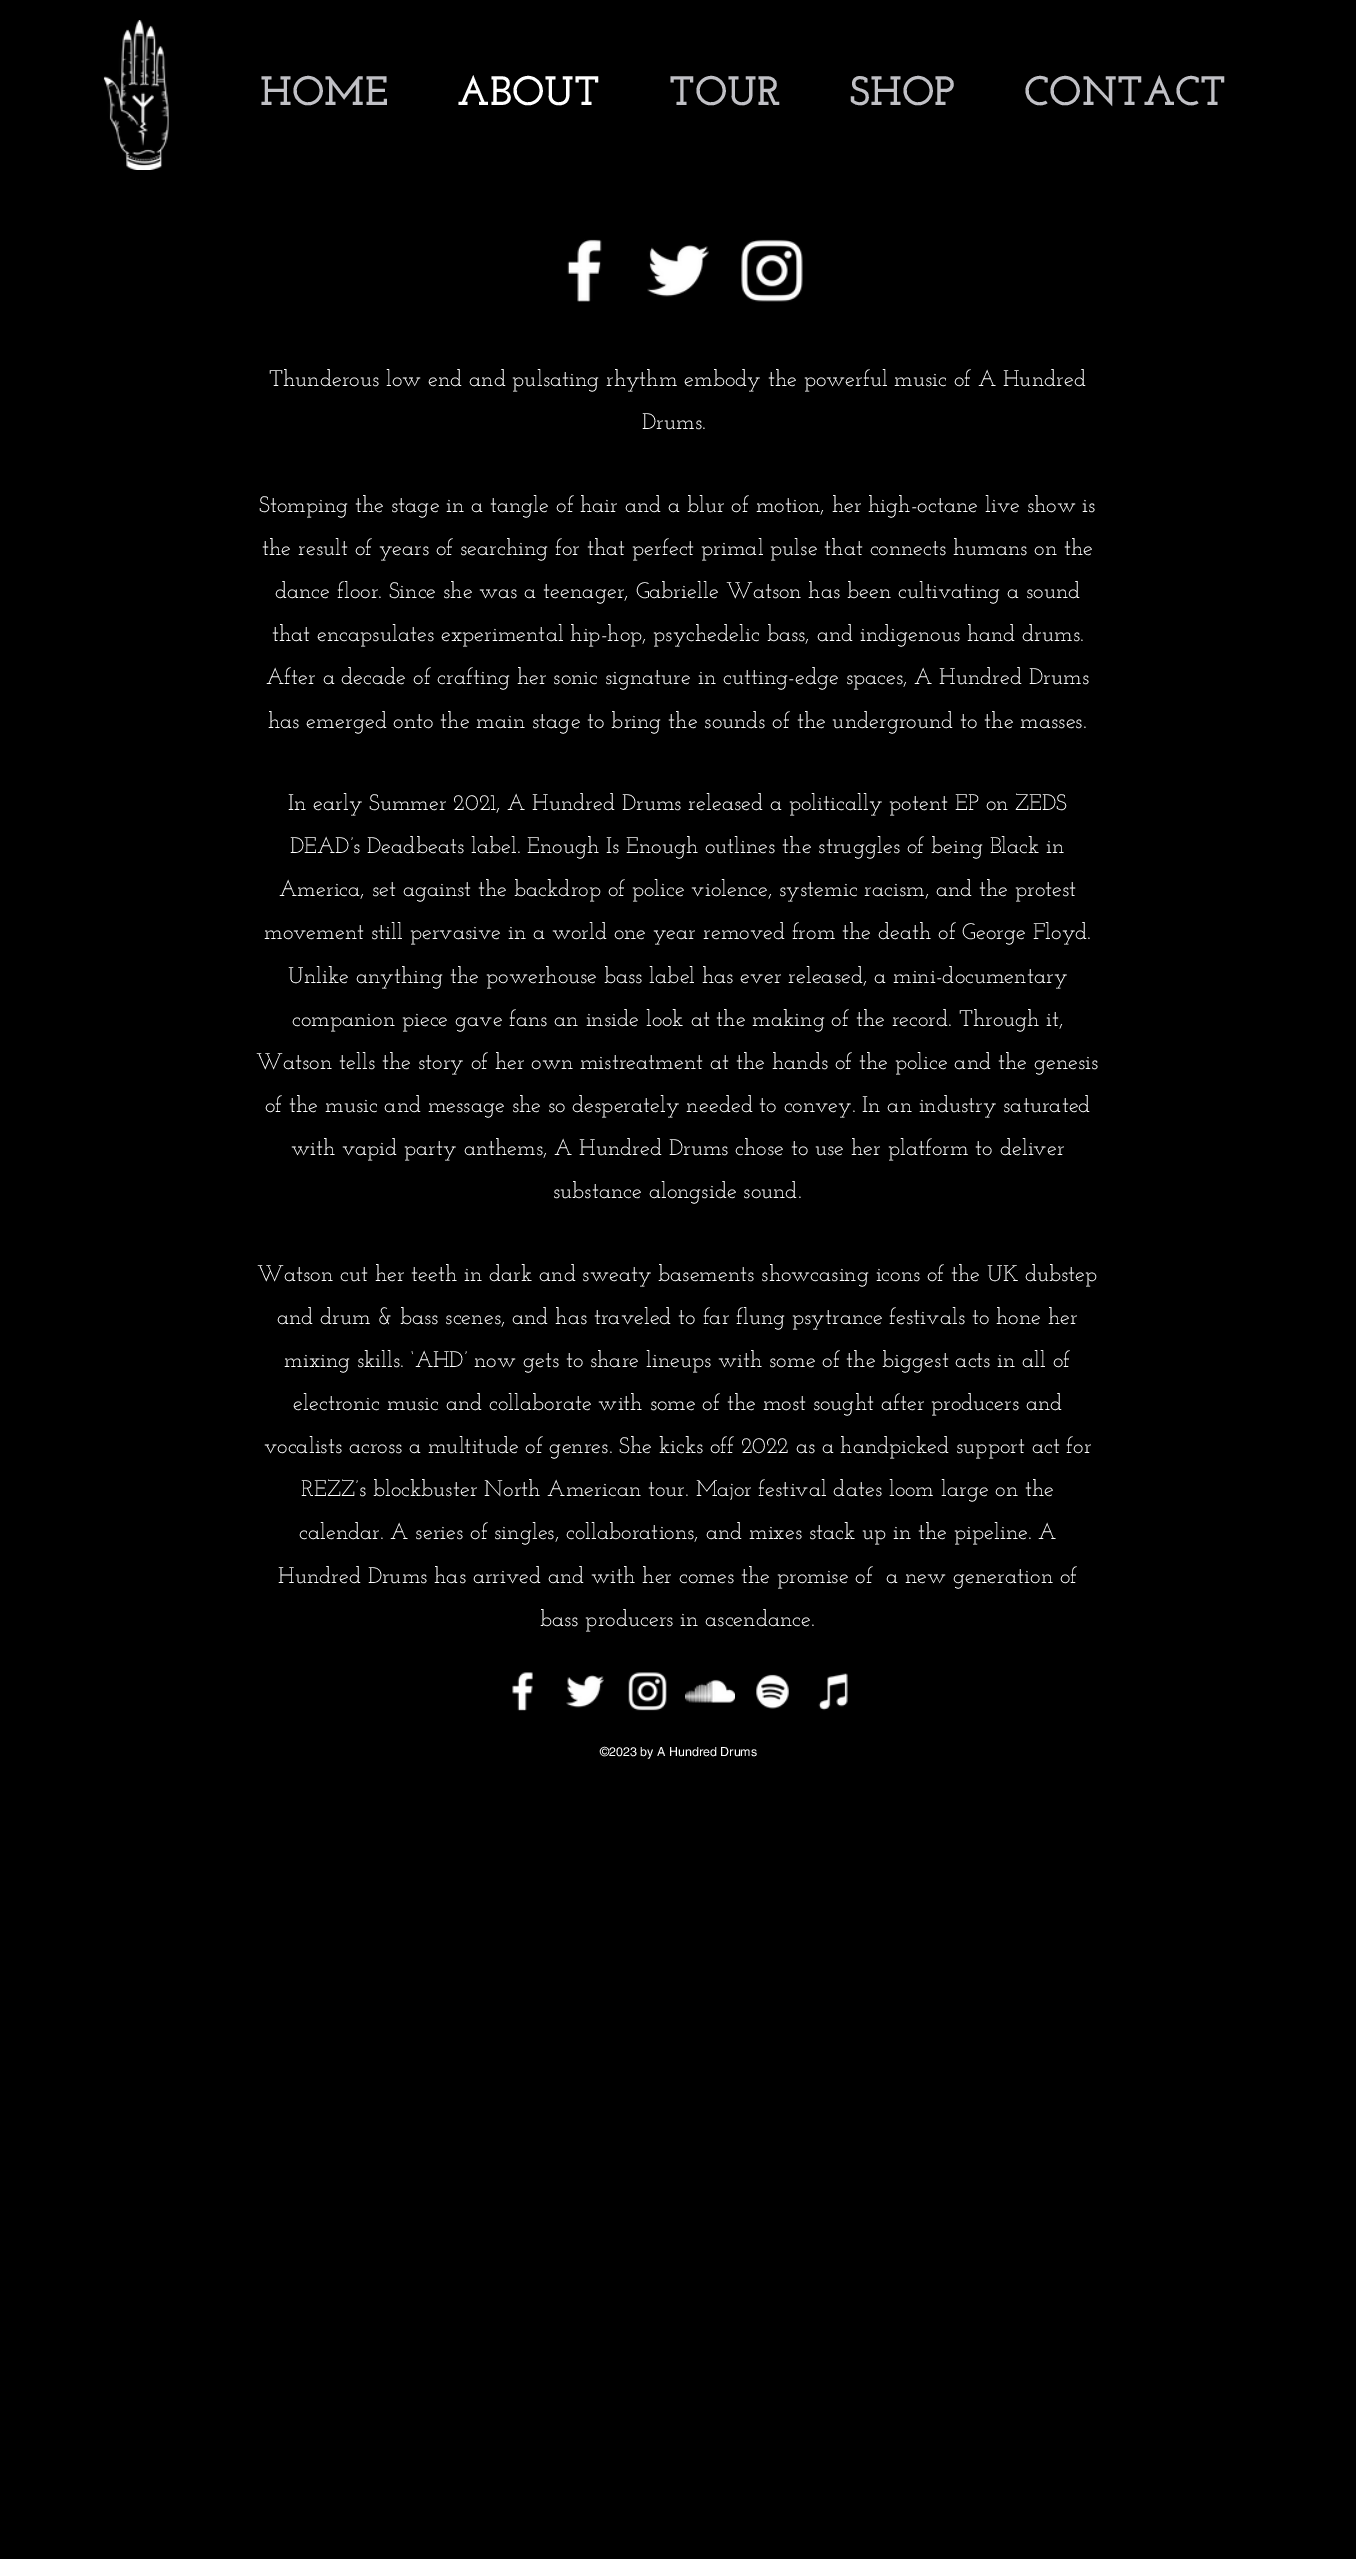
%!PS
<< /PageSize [1356 2559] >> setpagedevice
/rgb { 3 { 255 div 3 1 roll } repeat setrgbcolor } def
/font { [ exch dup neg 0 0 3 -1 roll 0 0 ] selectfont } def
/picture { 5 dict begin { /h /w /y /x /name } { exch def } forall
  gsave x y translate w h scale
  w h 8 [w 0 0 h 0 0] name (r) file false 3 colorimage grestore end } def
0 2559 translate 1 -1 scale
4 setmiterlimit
0 0 0 rgb
0 0 1356 2559 rectfill
(img/1.rgb) 103 20 66 150 picture
(img/2.rgb) 567 239 35 63 picture
(img/3.rgb) 647 245 62 52 picture
(img/4.rgb) 741 239 62 63 picture
(img/5.rgb) 512 1672 21 39 picture
(img/6.rgb) 566 1675 39 33 picture
(img/7.rgb) 628 1672 39 39 picture
(img/8.rgb) 685 1679 50 24 picture
(img/9.rgb) 756 1674 33 35 picture
(img/10.rgb) 818 1673 30 38 picture
/JosefinSlab-Bold 41.25 font
192 192 197 rgb
260 105 moveto (HOME) show
255 255 255 rgb
457 105 moveto (ABOUT) show
192 192 197 rgb
[
  [(TOUR) 669 105]
  [(SHOP) 850 105]
  [(CONTACT) 1024 105]
] { aload pop moveto show } forall
/JosefinSlab-Regular 22.5 font
255 255 255 rgb
[
  [(Thunderous low end and pulsating rhythm embody the powerful music of A Hundred) 269 386]
  [(Drums.) 642 429]
  [(Stomping the stage in a tangle of hair and a blur of motion, her high-octane live show is) 259 512]
  [(the result of years of searching for that perfect primal pulse that connects humans on the) 262 555]
  [(dance floor. Since she was a teenager, Gabrielle Watson has been cultivating a sound) 275 598]
  [(that encapsulates experimental hip-hop, psychedelic bass, and indigenous hand drums.) 272 641]
  [(After a decade of crafting her sonic signature in cutting-edge spaces, A Hundred Drums) 266 684]
  [(has emerged onto the main stage to bring the sounds of the underground to the masses.) 268 728]
  [(In early Summer 2021, A Hundred Drums released a politically potent EP on ZEDS) 288 810]
  [(DEAD’s Deadbeats label. Enough Is Enough outlines the struggles of being Black in) 290 853]
  [(America, set against the backdrop of police violence, systemic racism, and the protest) 279 896]
  [(movement still pervasive in a world one year removed from the death of George Floyd.) 264 939]
  [(Unlike anything the powerhouse bass label has ever released, a mini-documentary) 288 983]
  [(companion piece gave fans an inside look at the making of the record. Through it,) 292 1026]
  [(Watson tells the story of her own mistreatment at the hands of the police and the genesis) 256 1069]
  [(of the music and message she so desperately needed to convey. In an industry saturated) 265 1112]
  [(with vapid party anthems, A Hundred Drums chose to use her platform to deliver) 291 1155]
  [(substance alongside sound.) 553 1198]
  [(Watson cut her teeth in dark and sweaty basements showcasing icons of the UK dubstep) 257 1281]
  [(and drum & bass scenes, and has traveled to far flung psytrance festivals to hone her) 277 1324]
  [(mixing skills. ‘AHD’ now gets to share lineups with some of the biggest acts in all of) 284 1367]
  [(electronic music and collaborate with some of the most sought after producers and) 293 1410]
  [(vocalists across a multitude of genres. She kicks off 2022 as a handpicked support act for) 264 1453]
  [(REZZ’s blockbuster North American tour. Major festival dates loom large on the) 301 1496]
  [(calendar. A series of singles, collaborations, and mixes stack up in the pipeline. A) 299 1539]
  [(Hundred Drums has arrived and with her comes the promise of  a new generation of) 278 1583]
  [(bass producers in ascendance.) 540 1626]
] { aload pop moveto show } forall
/helvetica-Regular 12.5 font
600 1756 moveto (©2023 by A Hundred Drums) show
showpage
